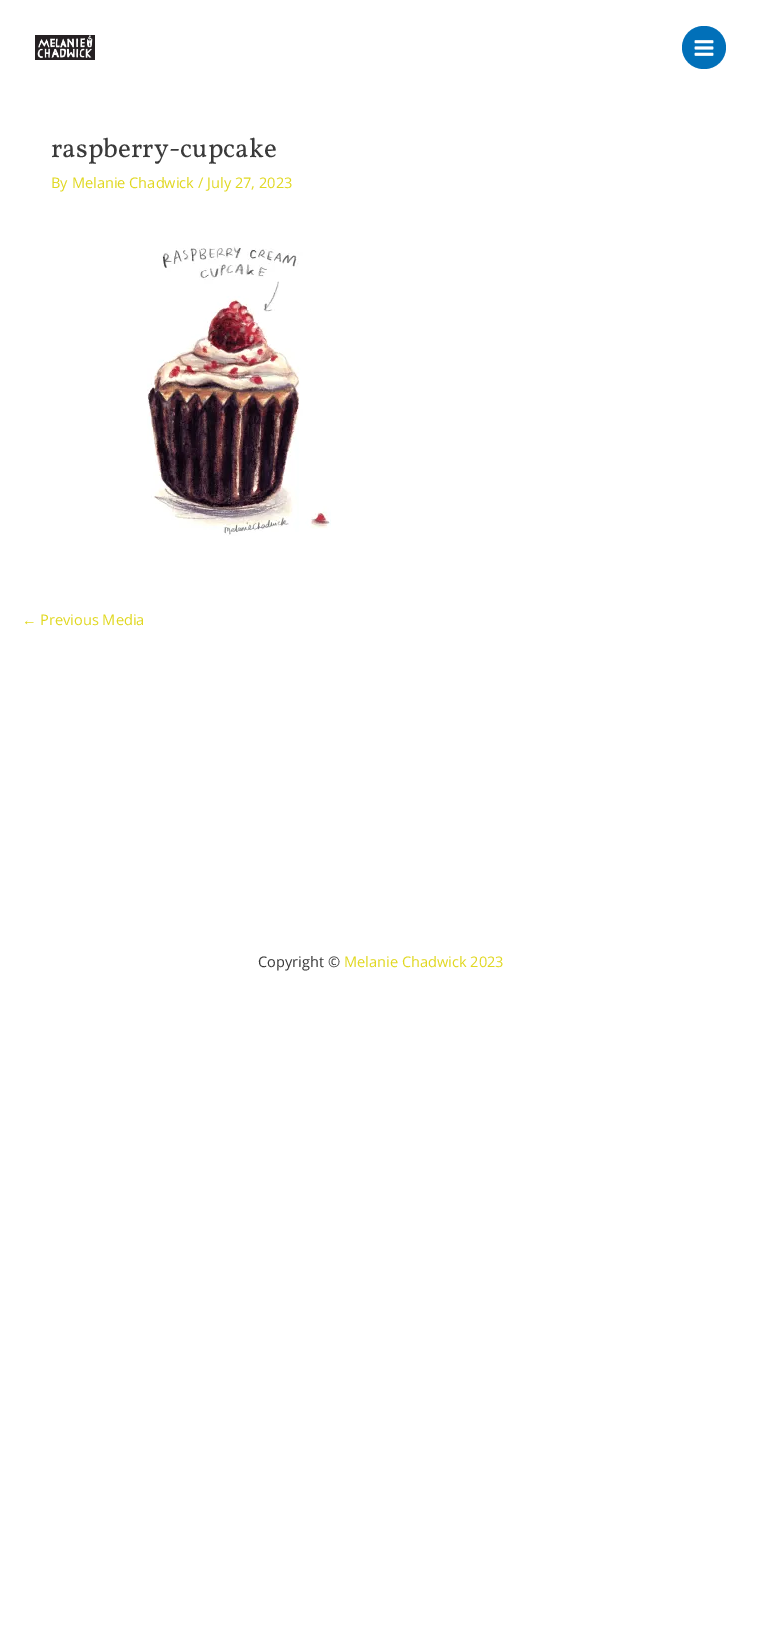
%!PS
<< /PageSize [761 1634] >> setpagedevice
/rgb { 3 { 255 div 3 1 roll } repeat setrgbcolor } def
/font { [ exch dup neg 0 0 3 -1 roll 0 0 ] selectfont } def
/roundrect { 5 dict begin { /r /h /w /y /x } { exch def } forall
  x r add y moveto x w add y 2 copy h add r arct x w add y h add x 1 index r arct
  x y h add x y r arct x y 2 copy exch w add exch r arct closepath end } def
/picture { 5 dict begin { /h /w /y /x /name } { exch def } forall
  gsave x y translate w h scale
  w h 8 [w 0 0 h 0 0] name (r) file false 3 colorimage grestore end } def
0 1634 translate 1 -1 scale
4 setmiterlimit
255 255 255 rgb
0 0 761 1634 rectfill
(img/1.rgb) 35 35 60 25 picture
1 112 185 rgb
682 26 44 43 21.5 roundrect fill
(img/2.rgb) 694 40 20 16 picture
(img/3.rgb) 147 246 184 290 picture
/Vollkorn-Regular 27.25 font
58 58 58 rgb
51 157 moveto (raspberry-cupcake) show
/OpenSans-Regular 14.6 font
225 216 33 rgb
51 188 moveto (By Melanie Chadwick / July 27, 2023) show
/LiberationSans-Regular 14.6 font
22 625 moveto (←) show
/OpenSans-Regular 14.6 font
40 625 moveto (Previous Media) show
58 58 58 rgb
258 967 moveto (Copyright ©) show
225 216 33 rgb
344 967 moveto (Melanie Chadwick 2023) show
showpage
